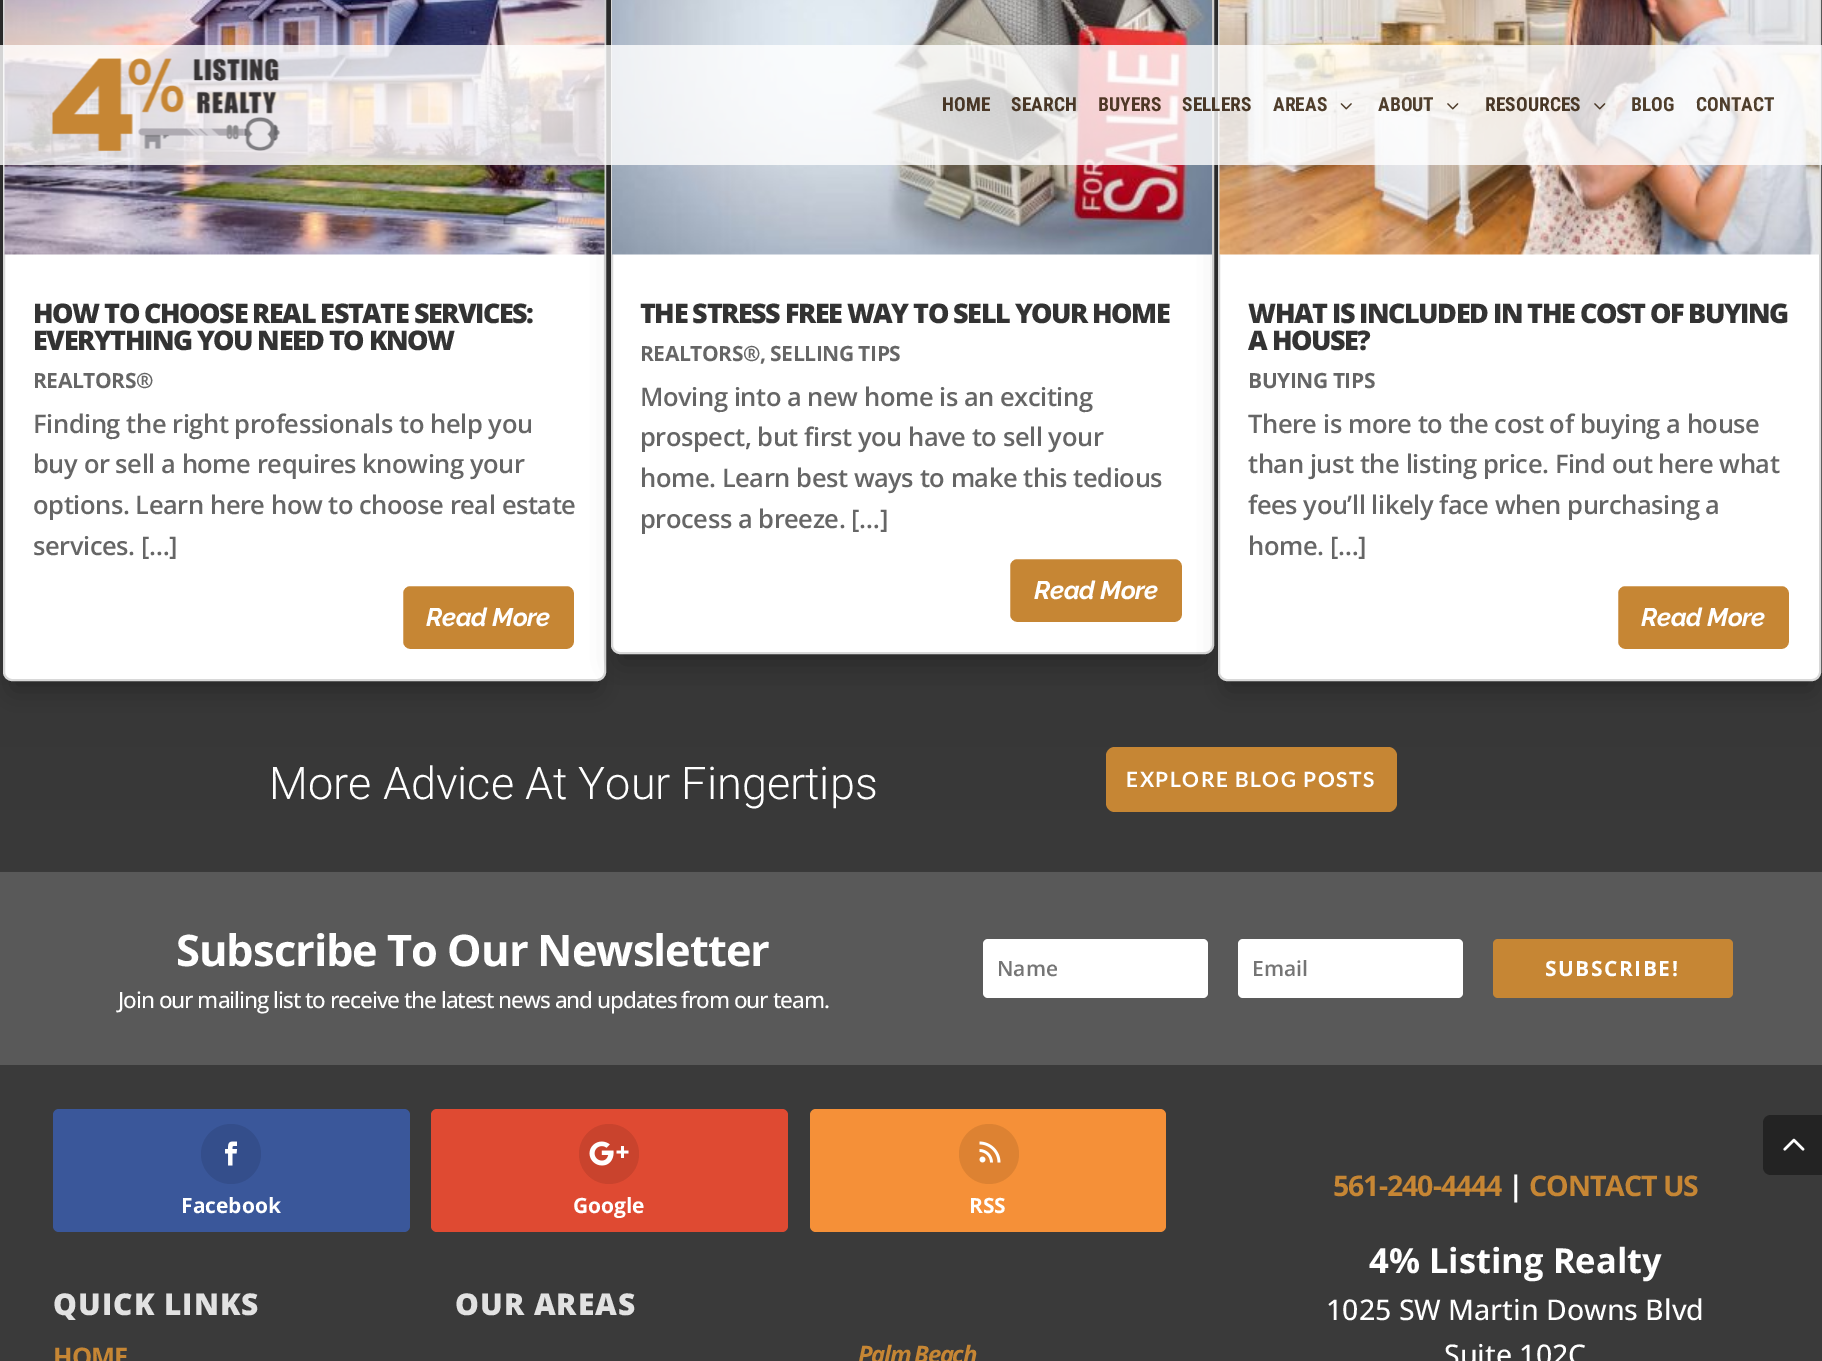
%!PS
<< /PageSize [1822 1361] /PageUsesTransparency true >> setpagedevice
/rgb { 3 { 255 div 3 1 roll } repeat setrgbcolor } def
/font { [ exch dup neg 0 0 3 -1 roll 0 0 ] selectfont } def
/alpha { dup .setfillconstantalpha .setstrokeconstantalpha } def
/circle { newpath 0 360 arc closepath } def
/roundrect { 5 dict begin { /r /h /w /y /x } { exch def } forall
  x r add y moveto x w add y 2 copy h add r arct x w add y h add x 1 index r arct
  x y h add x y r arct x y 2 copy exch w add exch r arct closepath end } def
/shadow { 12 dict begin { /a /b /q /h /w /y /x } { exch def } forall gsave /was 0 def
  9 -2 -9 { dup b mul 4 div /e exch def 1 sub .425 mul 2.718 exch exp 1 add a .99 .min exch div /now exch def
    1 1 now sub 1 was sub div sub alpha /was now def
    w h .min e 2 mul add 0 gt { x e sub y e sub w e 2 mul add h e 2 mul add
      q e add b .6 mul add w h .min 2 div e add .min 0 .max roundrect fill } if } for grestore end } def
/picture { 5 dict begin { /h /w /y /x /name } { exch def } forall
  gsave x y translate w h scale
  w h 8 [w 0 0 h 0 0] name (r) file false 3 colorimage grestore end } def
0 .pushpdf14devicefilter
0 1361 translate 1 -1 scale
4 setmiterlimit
255 255 255 rgb
0 0 1822 1361 rectfill
gsave 0 0 moveto 1822 0 lineto 1822 872 lineto 0 872 lineto closepath clip newpath
<< /ShadingType 2 /ColorSpace /DeviceRGB /Coords [911 -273 911 873] /Extend [true true] /Function << /FunctionType 2 /Domain [0 1] /C0 [0.157 0.157 0.157] /C1 [0.227 0.227 0.227] /N 1 >> >> shfill grestore
0 0 0 rgb
12 -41 585 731 0 13.5 0.3 shadow
255 255 255 rgb
4 -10 601 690 8 roundrect gsave fill grestore
216 216 216 rgb
2 setlinewidth
stroke
0 0 0 rgb
620 -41 585 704 0 13.5 0.3 shadow
(img/5.rgb) 4 0 601 255 picture
255 255 255 rgb
612 -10 601 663 8 roundrect gsave fill grestore
216 216 216 rgb
stroke
0 0 0 rgb
1227 -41 585 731 0 13.5 0.3 shadow
(img/6.rgb) 612 0 600 255 picture
255 255 255 rgb
1219 -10 601 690 8 roundrect gsave fill grestore
216 216 216 rgb
stroke
(img/7.rgb) 1219 0 601 255 picture
0.8 alpha
255 255 255 rgb
0 45 1822 120 rectfill
1 alpha
(img/1.rgb) 52 58 229 93 picture
(img/2.rgb) 1340 103 12 7 picture
(img/3.rgb) 1447 103 12 7 picture
(img/4.rgb) 1594 103 12 7 picture
198 134 52 rgb
402 585 173 65 8 roundrect gsave fill grestore
255 255 255 rgb
stroke
198 134 52 rgb
1009 558 174 65 8 roundrect gsave fill grestore
255 255 255 rgb
stroke
198 134 52 rgb
1617 585 173 65 8 roundrect gsave fill grestore
255 255 255 rgb
stroke
198 134 52 rgb
1106 747 291 65 9 roundrect fill
89 89 89 rgb
0 872 1822 193 rectfill
255 255 255 rgb
983 939 225 59 5 roundrect fill
1238 939 225 59 5 roundrect fill
198 134 52 rgb
1493 939 240 59 5 roundrect fill
58 58 58 rgb
0 1065 1822 296 rectfill
35 35 35 rgb
1771 1115 moveto 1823 1115 lineto 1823 1175 lineto 1771 1175 lineto 1766.5 1175 1763 1171.5 1763 1167 curveto 1763 1123 lineto 1763 1118.5 1766.5 1115 1771 1115 curveto closepath fill
(img/8.rgb) 1783 1138 22 13 picture
58 87 154 rgb
53 1109 357 123 6 roundrect fill
52 78 139 rgb
231 1154 30 circle fill
(img/9.rgb) 225 1141 13 25 picture
223 74 50 rgb
431 1109 357 123 6 roundrect fill
201 67 45 rgb
609 1154 30 circle fill
(img/10.rgb) 589 1141 40 25 picture
245 144 56 rgb
810 1109 356 123 6 roundrect fill
221 130 50 rgb
989 1154 30 circle fill
(img/11.rgb) 979 1141 22 22 picture
/RobotoCondensed-Bold 19.5 font
73 55 38 rgb
942 111 moveto (HOME) show
1011 111 moveto (SEARCH) show
79 55 38 rgb
1098 111 moveto (BUYERS) show
73 55 38 rgb
1182 111 moveto (SELLERS) show
79 62 44 rgb
1273 111 moveto (AREAS) show
1378 111 moveto (ABOUT) show
73 55 38 rgb
1485 111 moveto (RESOURCES) show
79 62 44 rgb
1631 111 moveto (BLOG) show
1696 111 moveto (CONTACT) show
/OpenSans-ExtraBold 27 font
51 51 51 rgb
33 323 moveto -1.5 0 (HOW TO CHOOSE REAL ESTATE SERVICES:) ashow
33 350 moveto -1.5 0 (EVERYTHING YOU NEED TO KNOW) ashow
/OpenSans-Bold 21 font
102 102 102 rgb
33 388 moveto -0.45 0 (REALTORS®) ashow
/OpenSans-SemiBold 25.5 font
33 433 moveto -0.45 0 (Finding the right professionals to help you) ashow
33 473 moveto -0.45 0 (buy or sell a home requires knowing your) ashow
33 514 moveto -0.45 0 (options. Learn here how to choose real estate) ashow
33 555 moveto -0.45 0 (services. […]) ashow
/Raleway-BoldItalic 25.5 font
255 255 255 rgb
426 626 moveto -0.45 0 (Read More) ashow
/OpenSans-ExtraBold 27 font
51 51 51 rgb
640 323 moveto -1.5 0 (THE STRESS FREE WAY TO SELL YOUR HOME) ashow
/OpenSans-Bold 21 font
102 102 102 rgb
640 361 moveto -0.45 0 (REALTORS®, SELLING TIPS) ashow
/OpenSans-SemiBold 25.5 font
640 406 moveto -0.45 0 (Moving into a new home is an exciting) ashow
640 446 moveto -0.45 0 (prospect, but first you have to sell your) ashow
640 487 moveto -0.45 0 (home. Learn best ways to make this tedious) ashow
640 528 moveto -0.45 0 (process a breeze. […]) ashow
/Raleway-BoldItalic 25.5 font
255 255 255 rgb
1034 599 moveto -0.45 0 (Read More) ashow
/OpenSans-ExtraBold 27 font
51 51 51 rgb
1248 323 moveto -1.5 0 (WHAT IS INCLUDED IN THE COST OF BUYING) ashow
1248 350 moveto -1.5 0 (A HOUSE?) ashow
/OpenSans-Bold 21 font
102 102 102 rgb
1248 388 moveto -0.45 0 (BUYING TIPS) ashow
/OpenSans-SemiBold 25.5 font
1248 433 moveto -0.45 0 (There is more to the cost of buying a house) ashow
1248 473 moveto -0.45 0 (than just the listing price. Find out here what) ashow
1248 514 moveto -0.45 0 (fees you’ll likely face when purchasing a) ashow
1248 555 moveto -0.45 0 (home. […]) ashow
/Raleway-BoldItalic 25.5 font
255 255 255 rgb
1641 626 moveto -0.45 0 (Read More) ashow
/Roboto-Light 45 font
269 799 moveto (More Advice At Your Fingertips) show
/Lato-Bold 21 font
1126 787 moveto 1.5 0 (EXPLORE BLOG POSTS) ashow
/OpenSans-Bold 43.5 font
176 966 moveto -1.05 0 (Subscribe To Our Newsletter) ashow
/OpenSans-Medium 22.5 font
118 1008 moveto -1.05 0 (Join our mailing list to receive the latest news and updates from our team.) ashow
/OpenSans-SemiBold 21 font
117 117 117 rgb
997 976 moveto (Name) show
1252 976 moveto (Email) show
/OpenSans-Bold 21 font
255 255 255 rgb
1545 976 moveto 1.5 0 (SUBSCRIBE!) ashow
[
  [(Facebook) 181 1213]
  [(Google) 573 1213]
  [(RSS) 969 1213]
] { aload pop moveto show } forall
/OpenSans-ExtraBold 30 font
226 226 226 rgb
53 1315 moveto 1 0 (QUICK LINKS) ashow
/OpenSans-Bold 25.5 font
198 134 52 rgb
53 1366 moveto -1 0 (HOME) ashow
/OpenSans-ExtraBold 30 font
226 226 226 rgb
455 1315 moveto 1 0 (OUR AREAS) ashow
/OpenSans-BoldItalic 24 font
198 134 52 rgb
858 1363 moveto -1.5 0 (Palm Beach) ashow
/OpenSans-Bold 28.5 font
1333 1196 moveto -1.05 0 (561-240-4444) ashow
255 255 255 rgb
1508 1196 moveto -1.05 0 (|) ashow
198 134 52 rgb
1529 1196 moveto -1.05 0 (CONTACT US) ashow
/OpenSans-Bold 34.5 font
255 255 255 rgb
1369 1273 moveto (4% Listing Realty) show
/OpenSans-Medium 28.5 font
1326 1320 moveto (1025 SW Martin Downs Blvd) show
1444 1365 moveto (Suite 102C) show
.poppdf14devicefilter showpage
